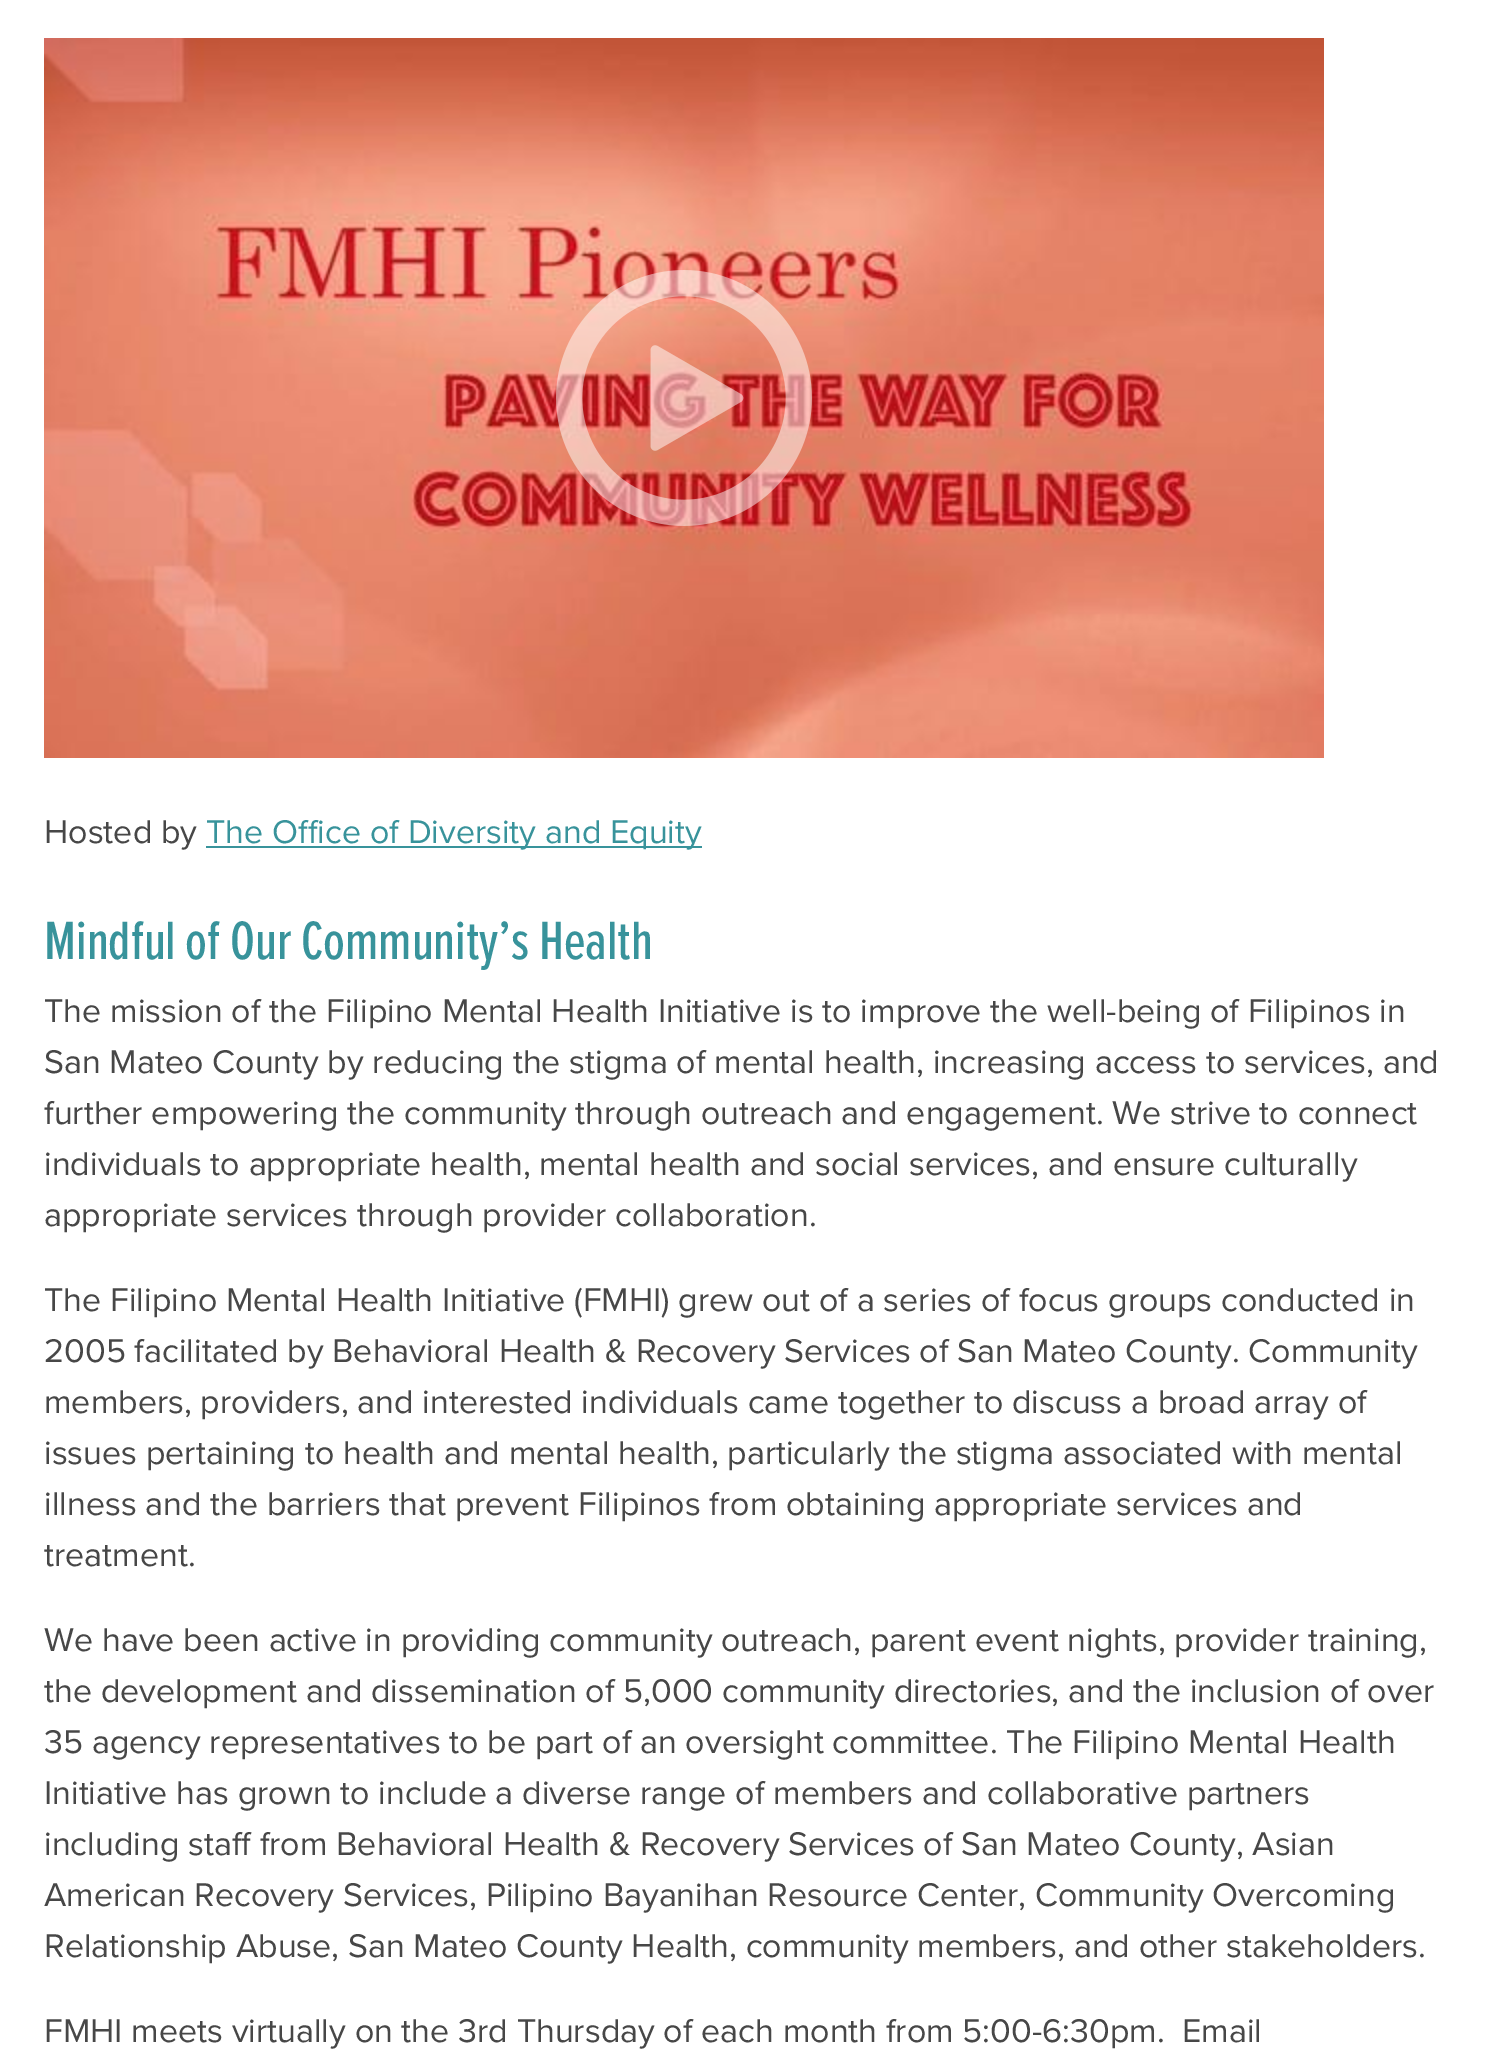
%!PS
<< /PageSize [1498 2056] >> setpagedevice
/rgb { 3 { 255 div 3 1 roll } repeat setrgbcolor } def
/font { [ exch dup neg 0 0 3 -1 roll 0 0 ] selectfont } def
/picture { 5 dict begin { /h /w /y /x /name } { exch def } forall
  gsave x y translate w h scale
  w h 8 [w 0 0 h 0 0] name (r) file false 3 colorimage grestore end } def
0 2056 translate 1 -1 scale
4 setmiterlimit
255 255 255 rgb
0 0 1498 2056 rectfill
(img/1.rgb) 44 38 1280 720 picture
(img/2.rgb) 556 270 256 256 picture
56 147 155 rgb
206 846 496 2 rectfill
/ProximaNova-Regular 34 font
71 71 71 rgb
44 843 moveto (Hosted by) show
56 147 155 rgb
206 843 moveto (The Office of Diversity and Equity) show
/ProximaNova-Medium 56 font
44 959 moveto (Mindful of Our Community’s Health) show
/ProximaNova-Regular 34 font
71 71 71 rgb
[
  [(The mission of the Filipino Mental Health Initiative is to improve the well-being of Filipinos in) 44 1022]
  [(San Mateo County by reducing the stigma of mental health, increasing access to services, and) 44 1073]
  [(further empowering the community through outreach and engagement. We strive to connect) 44 1124]
  [(individuals to appropriate health, mental health and social services, and ensure culturally) 44 1175]
  [(appropriate services through provider collaboration.) 44 1226]
  [(The Filipino Mental Health Initiative \(FMHI\) grew out of a series of focus groups conducted in) 44 1311]
  [(2005 facilitated by Behavioral Health & Recovery Services of San Mateo County. Community) 44 1362]
  [(members, providers, and interested individuals came together to discuss a broad array of) 44 1413]
  [(issues pertaining to health and mental health, particularly the stigma associated with mental) 44 1464]
  [(illness and the barriers that prevent Filipinos from obtaining appropriate services and) 44 1515]
  [(treatment.) 44 1566]
  [(We have been active in providing community outreach, parent event nights, provider training,) 44 1651]
  [(the development and dissemination of 5,000 community directories, and the inclusion of over) 44 1702]
  [(35 agency representatives to be part of an oversight committee. The Filipino Mental Health) 44 1753]
  [(Initiative has grown to include a diverse range of members and collaborative partners) 44 1804]
  [(including staff from Behavioral Health & Recovery Services of San Mateo County, Asian) 44 1855]
  [(American Recovery Services, Pilipino Bayanihan Resource Center, Community Overcoming) 44 1906]
  [(Relationship Abuse, San Mateo County Health, community members, and other stakeholders.) 44 1957]
  [(FMHI meets virtually on the 3rd Thursday of each month from 5:00-6:30pm.  Email) 44 2042]
] { aload pop moveto show } forall
showpage
